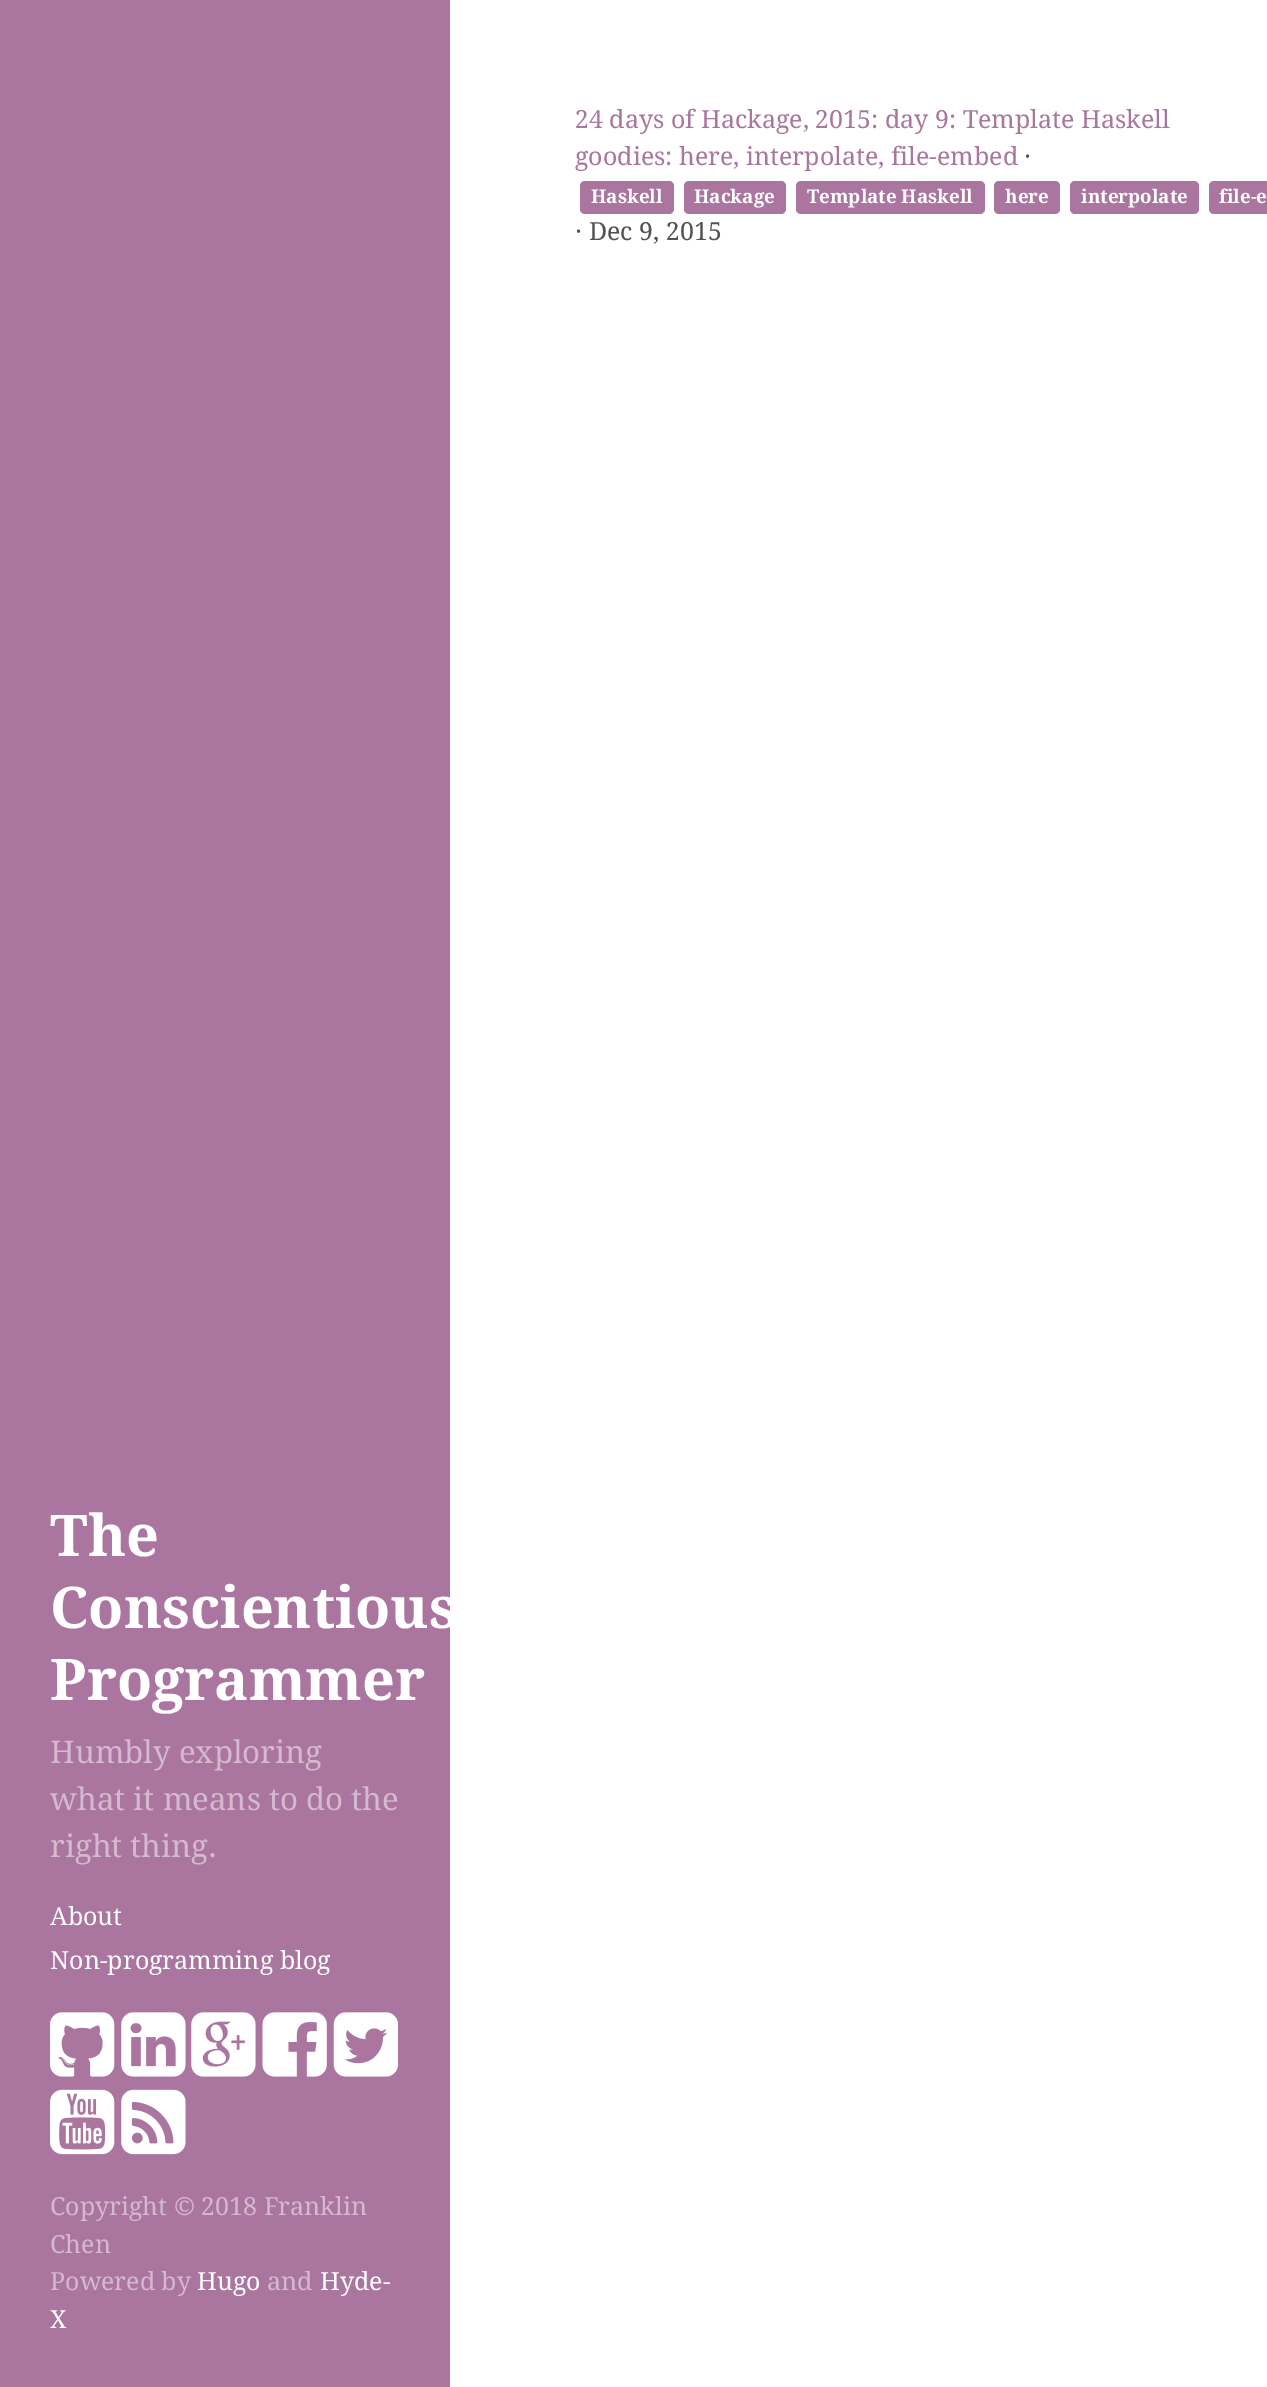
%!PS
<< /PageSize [1267 2387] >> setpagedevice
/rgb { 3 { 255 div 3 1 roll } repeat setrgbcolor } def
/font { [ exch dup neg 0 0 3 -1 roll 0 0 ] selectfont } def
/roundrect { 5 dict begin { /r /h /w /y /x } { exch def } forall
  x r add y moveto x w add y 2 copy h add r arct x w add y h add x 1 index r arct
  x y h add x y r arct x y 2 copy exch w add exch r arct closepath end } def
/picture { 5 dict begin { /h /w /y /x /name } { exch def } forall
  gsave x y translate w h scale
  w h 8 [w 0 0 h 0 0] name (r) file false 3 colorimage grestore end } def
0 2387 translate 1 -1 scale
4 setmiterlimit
255 255 255 rgb
0 0 1267 2387 rectfill
170 117 159 rgb
580 181 94 33 5 roundrect fill
684 181 102 33 5 roundrect fill
796 181 189 33 5 roundrect fill
994 181 66 33 5 roundrect fill
1070 181 129 33 5 roundrect fill
1209 181 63 33 5 roundrect fill
0 0 450 2387 rectfill
(img/1.rgb) 50 2012 65 65 picture
(img/2.rgb) 121 2012 65 65 picture
(img/3.rgb) 191 2012 65 65 picture
(img/4.rgb) 262 2012 65 65 picture
(img/5.rgb) 333 2012 66 65 picture
(img/6.rgb) 50 2089 65 66 picture
(img/7.rgb) 121 2089 65 66 picture
/DroidSerif-Regular 25 font
575 128 moveto (24 days of Hackage, 2015: day 9: Template Haskell) show
575 165 moveto (goodies: here, interpolate, file-embed) show
81 81 81 rgb
1024 165 moveto (·) show
/DroidSerif-Bold 18.75 font
255 255 255 rgb
[
  [(Haskell) 591 203]
  [(Hackage) 694 203]
  [(Template Haskell) 807 203]
  [(here) 1005 203]
  [(interpolate) 1081 203]
  [(file-e) 1219 203]
] { aload pop moveto show } forall
/DroidSerif-Regular 25 font
81 81 81 rgb
575 240 moveto (· Dec 9, 2015) show
/DroidSerif-Bold 57.5 font
255 255 255 rgb
[
  [(The) 50 1556]
  [(Conscientious) 50 1628]
  [(Programmer) 50 1700]
] { aload pop moveto show } forall
/DroidSerif-Regular 31.25 font
213 186 207 rgb
[
  [(Humbly exploring) 50 1763]
  [(what it means to do the) 50 1810]
  [(right thing.) 50 1857]
] { aload pop moveto show } forall
/DroidSerif-Regular 25 font
255 255 255 rgb
50 1925 moveto (About) show
50 1969 moveto (Non-programming blog) show
213 186 207 rgb
[
  [(Copyright © 2018 Franklin) 50 2215]
  [(Chen) 50 2253]
  [(Powered by) 50 2290]
] { aload pop moveto show } forall
255 255 255 rgb
197 2290 moveto (Hugo) show
213 186 207 rgb
267 2290 moveto (and) show
255 255 255 rgb
320 2290 moveto (Hyde-) show
50 2328 moveto (X) show
showpage
